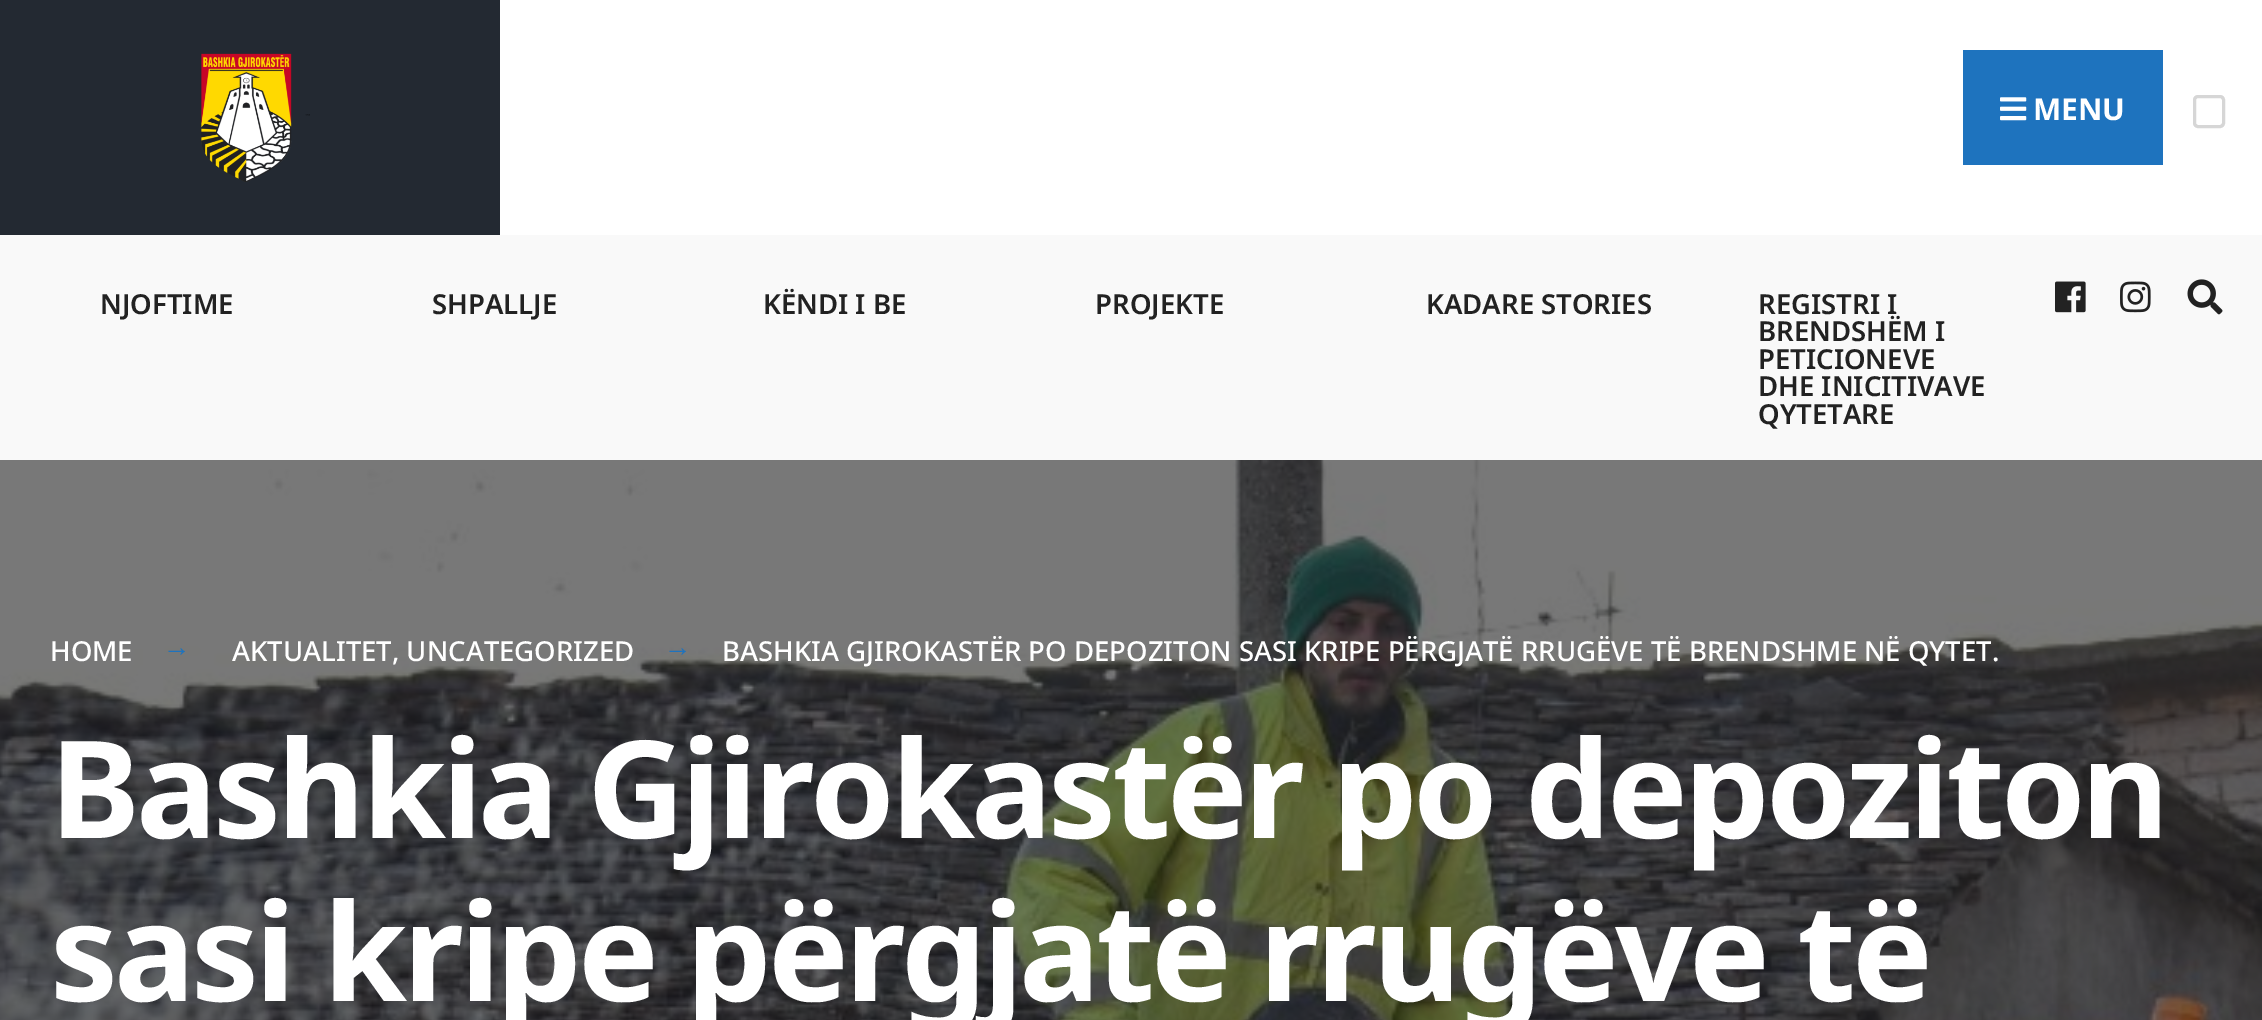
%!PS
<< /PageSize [2262 1020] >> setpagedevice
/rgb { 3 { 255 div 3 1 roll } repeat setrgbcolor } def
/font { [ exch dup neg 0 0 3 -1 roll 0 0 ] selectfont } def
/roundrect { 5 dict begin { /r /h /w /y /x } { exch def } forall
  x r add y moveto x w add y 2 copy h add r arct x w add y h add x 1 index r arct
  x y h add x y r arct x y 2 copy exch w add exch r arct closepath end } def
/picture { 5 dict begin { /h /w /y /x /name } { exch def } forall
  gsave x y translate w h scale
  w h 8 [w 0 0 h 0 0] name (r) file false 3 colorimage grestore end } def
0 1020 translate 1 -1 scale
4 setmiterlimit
255 255 255 rgb
0 0 2262 1020 rectfill
35 41 50 rgb
0 0 500 235 rectfill
(img/1.rgb) 201 53 109 129 picture
30 115 190 rgb
1963 50 200 115 rectfill
(img/2.rgb) 2000 97 27 24 picture
214 214 214 rgb
3 setlinewidth
2194.5 96.5 29 30 3.5 roundrect stroke
249 249 249 rgb
0 235 2262 225 rectfill
(img/3.rgb) 2055 281 31 32 picture
(img/4.rgb) 2120 281 31 32 picture
(img/5.rgb) 2187 279 36 36 picture
30 30 30 rgb
0 460 2262 560 rectfill
(img/6.rgb) 0 460 2262 560 picture
/NotoSans-Bold 30 font
255 255 255 rgb
2033 120 moveto (MENU) show
/NotoSans-SemiBold 27.5 font
34 34 34 rgb
[
  [(NJOFTIME) 100 314]
  [(SHPALLJE) 432 314]
  [(KËNDI I BE) 763 314]
  [(PROJEKTE) 1095 314]
  [(KADARE STORIES) 1426 314]
  [(REGISTRI I) 1758 314]
  [(BRENDSHËM I) 1758 341]
  [(PETICIONEVE) 1758 369]
  [(DHE INICITIVAVE) 1758 396]
  [(QYTETARE) 1758 424]
] { aload pop moveto show } forall
/NotoSans-Medium 27.5 font
255 255 255 rgb
50 661 moveto (HOME) show
/LiberationSerif-Regular 27.5 font
30 115 190 rgb
163 656 moveto (→) show
/NotoSans-Medium 27.5 font
255 255 255 rgb
232 661 moveto (AKTUALITET, UNCATEGORIZED) show
/LiberationSerif-Regular 27.5 font
30 115 190 rgb
664 656 moveto (→) show
/NotoSans-Medium 27.5 font
255 255 255 rgb
722 661 moveto (BASHKIA GJIROKASTËR PO DEPOZITON SASI KRIPE PËRGJATË RRUGËVE TË BRENDSHME NË QYTET.) show
/NotoSans-Bold 135.75 font
50 838 moveto -4.1 0 (Bashkia Gjirokastër po depoziton) ashow
50 1001 moveto -4.1 0 (sasi kripe përgjatë rrugëve të) ashow
showpage
